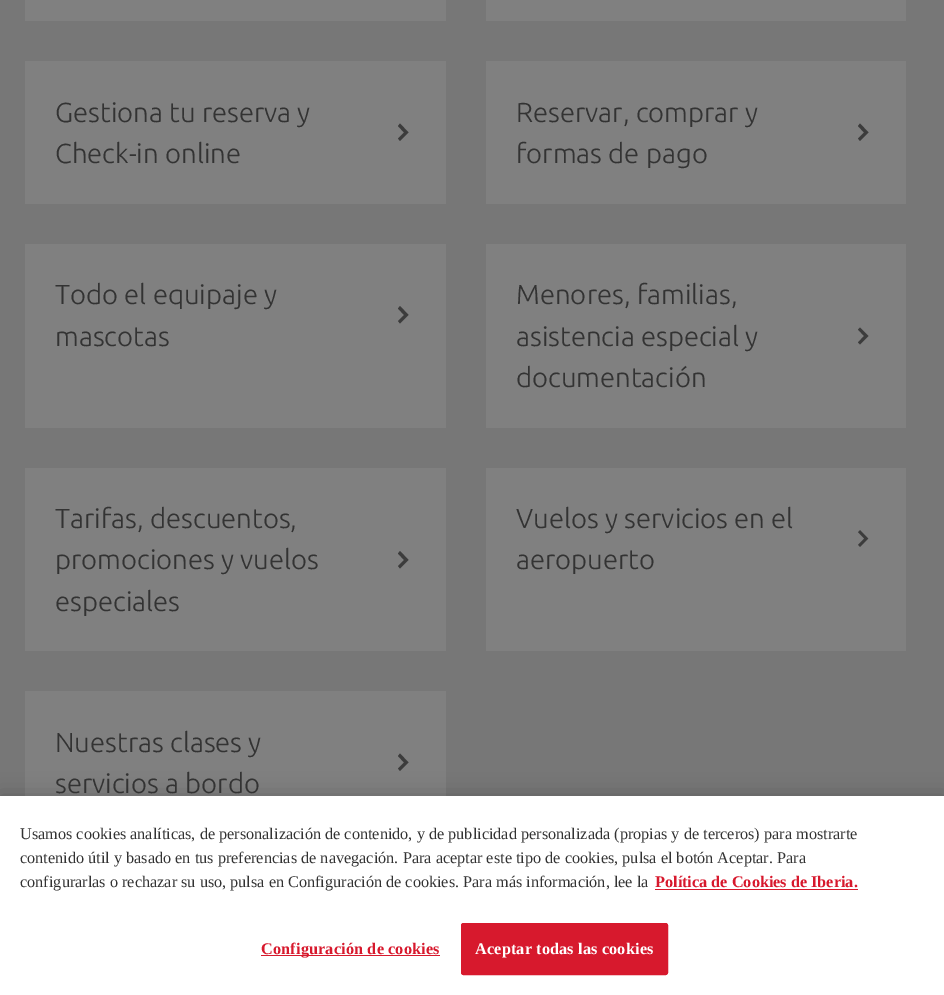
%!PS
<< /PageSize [944 995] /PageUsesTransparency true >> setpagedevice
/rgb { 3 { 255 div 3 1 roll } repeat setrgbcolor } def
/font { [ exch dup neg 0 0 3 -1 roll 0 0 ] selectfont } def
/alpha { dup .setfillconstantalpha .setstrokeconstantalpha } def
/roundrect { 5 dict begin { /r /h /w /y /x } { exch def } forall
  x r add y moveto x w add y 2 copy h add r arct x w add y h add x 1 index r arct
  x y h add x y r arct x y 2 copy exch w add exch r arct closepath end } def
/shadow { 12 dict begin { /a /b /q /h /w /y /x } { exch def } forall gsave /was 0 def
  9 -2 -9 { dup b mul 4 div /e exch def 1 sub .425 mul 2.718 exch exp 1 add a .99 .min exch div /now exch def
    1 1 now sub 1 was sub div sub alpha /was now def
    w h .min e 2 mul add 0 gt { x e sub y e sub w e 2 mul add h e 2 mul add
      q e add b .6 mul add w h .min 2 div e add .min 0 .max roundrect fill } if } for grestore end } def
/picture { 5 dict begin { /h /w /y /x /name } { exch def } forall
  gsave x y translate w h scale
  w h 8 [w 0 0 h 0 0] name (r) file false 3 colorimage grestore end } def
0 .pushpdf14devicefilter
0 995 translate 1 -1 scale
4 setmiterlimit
119 119 119 rgb
0 0 944 995 rectfill
[
  [25 0 421 21 128 128 128]
  [486 0 420 21 128 128 128]
  [25 61 421 143 128 128 128]
] { aload pop rgb rectfill } forall
60 60 60 rgb
398 126 moveto 400 123.5 lineto 408.5 132.5 lineto 400 141 lineto 398 138.5 lineto 404 132.5 lineto closepath fill
128 128 128 rgb
486 61 420 143 rectfill
60 60 60 rgb
858 126 moveto 860 123.5 lineto 868.5 132.5 lineto 860 141 lineto 858 138.5 lineto 864 132.5 lineto closepath fill
128 128 128 rgb
25 244 421 184 rectfill
60 60 60 rgb
398 308.5 moveto 400 306 lineto 408.5 315 lineto 400 323.5 lineto 398 321 lineto 404 315 lineto closepath fill
128 128 128 rgb
486 244 420 184 rectfill
60 60 60 rgb
858 329.5 moveto 860 327.5 lineto 868.5 336 lineto 860 344.5 lineto 858 342.5 lineto 864 336 lineto closepath fill
128 128 128 rgb
25 468 421 183 rectfill
60 60 60 rgb
398 553.5 moveto 400 551 lineto 408.5 560 lineto 400 568.5 lineto 398 566 lineto 404 560 lineto closepath fill
128 128 128 rgb
486 468 420 183 rectfill
(img/1.rgb) 858 530 11 17 picture
25 691 421 105 rectfill
60 60 60 rgb
398 756 moveto 400 753.5 lineto 408.5 762.5 lineto 400 771 lineto 398 768.5 lineto 404 762.5 lineto closepath fill
0 0 0 rgb
0 796 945 199 0 11 0.2 shadow
[
  [0 796 944 199 255 255 255]
  [655 889 203 1 215 25 45]
  [261 955 179 1 215 25 45]
] { aload pop rgb rectfill } forall
461.5 923.5 206 51 2 roundrect gsave fill grestore
stroke
/Ubuntu-Light 27.5 font
51 51 51 rgb
[
  [(Gestiona tu reserva y) 55 122]
  [(Check-in online) 55 163]
  [(Reservar, comprar y) 516 122]
  [(formas de pago) 516 163]
  [(Todo el equipaje y) 55 304]
  [(mascotas) 55 346]
  [(Menores, familias,) 516 304]
  [(asistencia especial y) 516 346]
  [(documentación) 516 387]
  [(Tarifas, descuentos,) 55 528]
  [(promociones y vuelos) 55 569]
  [(especiales) 55 611]
  [(Vuelos y servicios en el) 516 528]
  [(aeropuerto) 516 569]
  [(Nuestras clases y) 55 752]
  [(servicios a bordo) 55 793]
] { aload pop moveto show } forall
/LiberationSerif-Regular 16.25 font
[
  [(Usamos cookies analíticas, de personalización de contenido, y de publicidad personalizada \(propias y de terceros\) para mostrarte) 20 839]
  [(contenido útil y basado en tus preferencias de navegación. Para aceptar este tipo de cookies, pulsa el botón Aceptar. Para) 20 863]
  [(configurarlas o rechazar su uso, pulsa en Configuración de cookies. Para más información, lee la) 20 887]
] { aload pop moveto show } forall
/LiberationSerif-Bold 16.25 font
215 25 45 rgb
655 887 moveto (Política de Cookies de Iberia.) show
261 954 moveto 0.15 0 (Configuración de cookies) ashow
255 255 255 rgb
475 954 moveto 0.15 0 (Aceptar todas las cookies) ashow
.poppdf14devicefilter showpage
